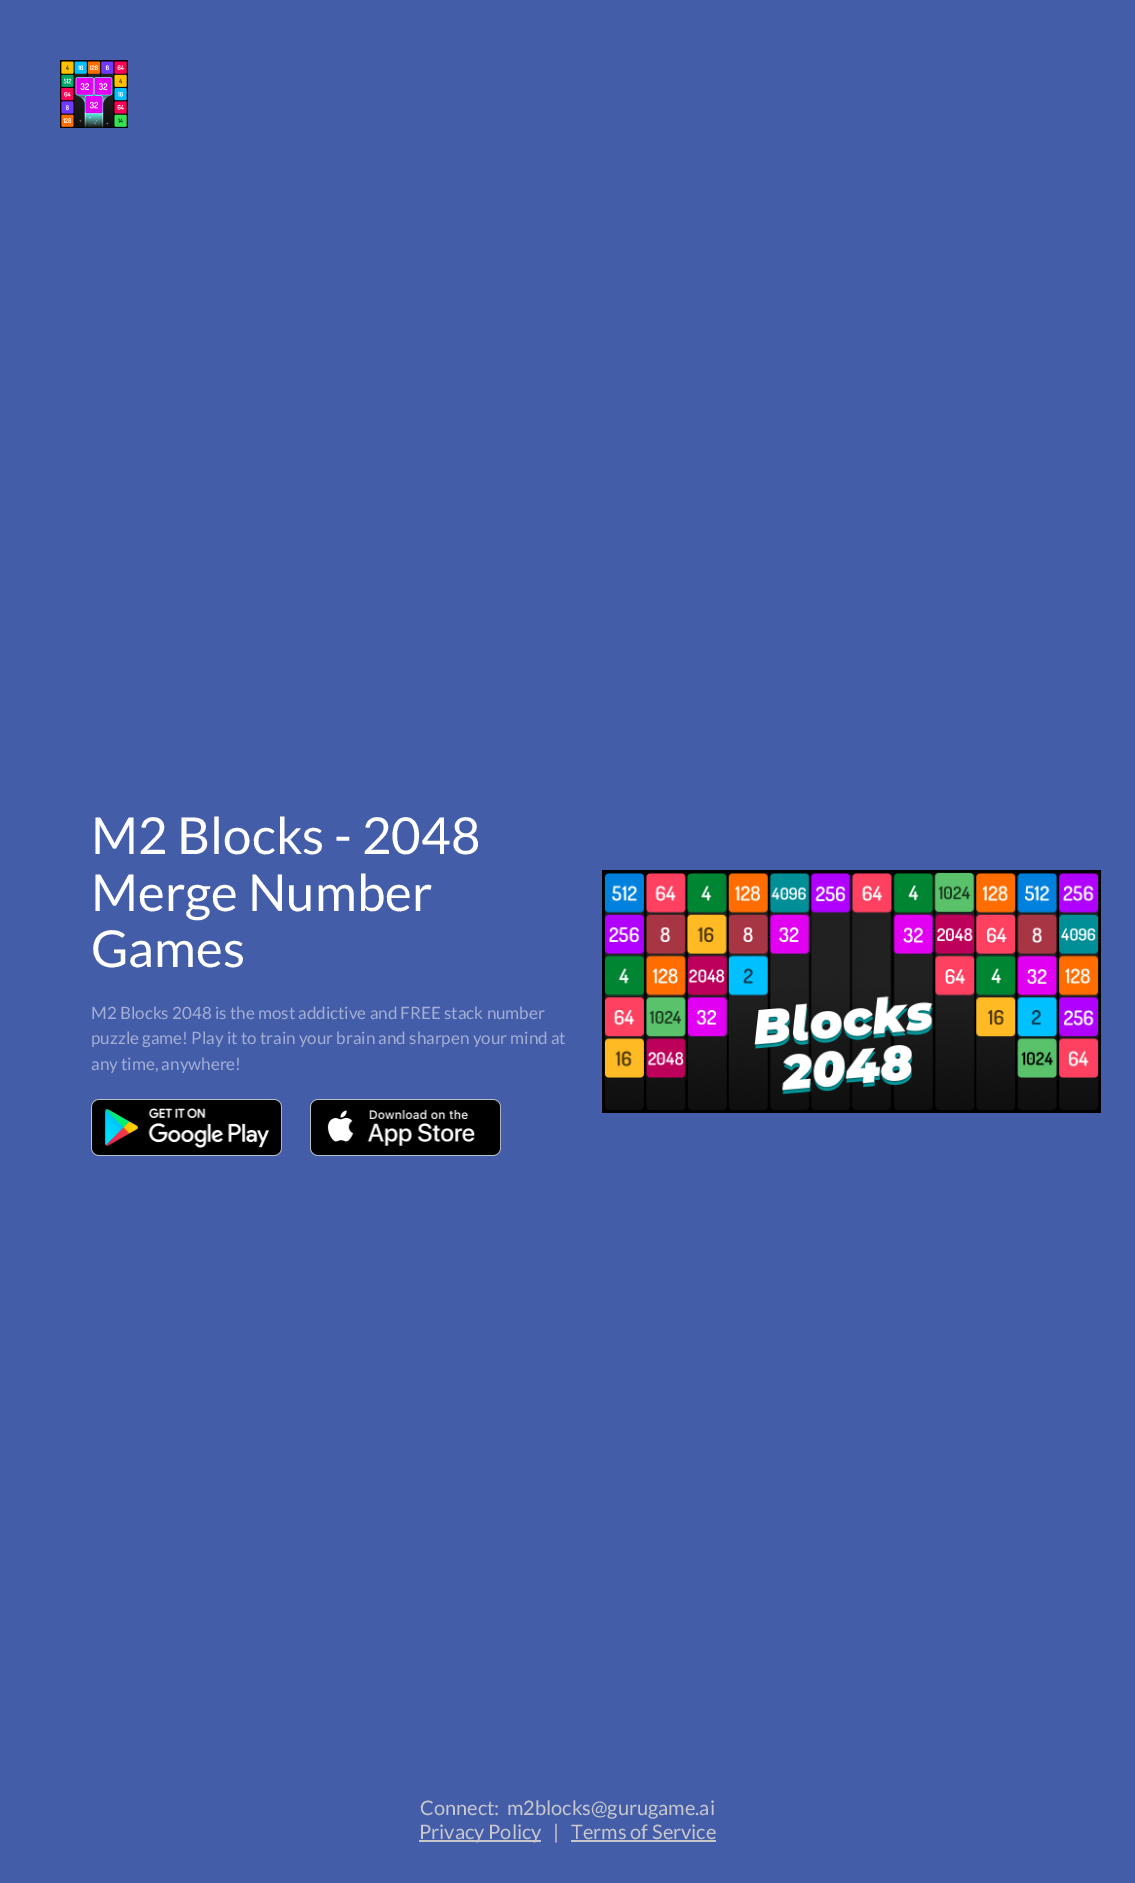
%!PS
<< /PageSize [1135 1883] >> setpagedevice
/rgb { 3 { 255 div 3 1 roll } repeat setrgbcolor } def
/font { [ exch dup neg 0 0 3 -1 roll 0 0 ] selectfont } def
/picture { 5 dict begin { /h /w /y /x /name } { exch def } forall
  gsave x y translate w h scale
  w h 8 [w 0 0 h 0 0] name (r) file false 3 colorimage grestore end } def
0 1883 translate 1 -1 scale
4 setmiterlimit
68 93 168 rgb
0 0 1135 1883 rectfill
(img/1.rgb) 60 60 68 68 picture
(img/2.rgb) 91 1099 191 57 picture
(img/3.rgb) 310 1099 191 57 picture
(img/4.rgb) 602 870 499 243 picture
199 199 204 rgb
419 1840 122 2 rectfill
571 1840 145 2 rectfill
/Lato-Regular 51 font
255 255 255 rgb
[
  [(M2 Blocks - 2048) 91 854]
  [(Merge Number) 91 911]
  [(Games) 91 967]
] { aload pop moveto show } forall
/Lato-Regular 17 font
162 174 212 rgb
[
  [(M2 Blocks 2048 is the most addictive and FREE stack number) 91 1019]
  [(puzzle game! Play it to train your brain and sharpen your mind at) 91 1044]
  [(any time, anywhere!) 91 1070]
] { aload pop moveto show } forall
/Lato-Regular 20 font
199 199 204 rgb
[
  [(Connect:) 420 1815]
  [(m2blocks@gurugame.ai) 507 1815]
  [(Privacy Policy) 419 1839]
  [(|) 553 1839]
  [(Terms of Service) 571 1839]
] { aload pop moveto show } forall
showpage
